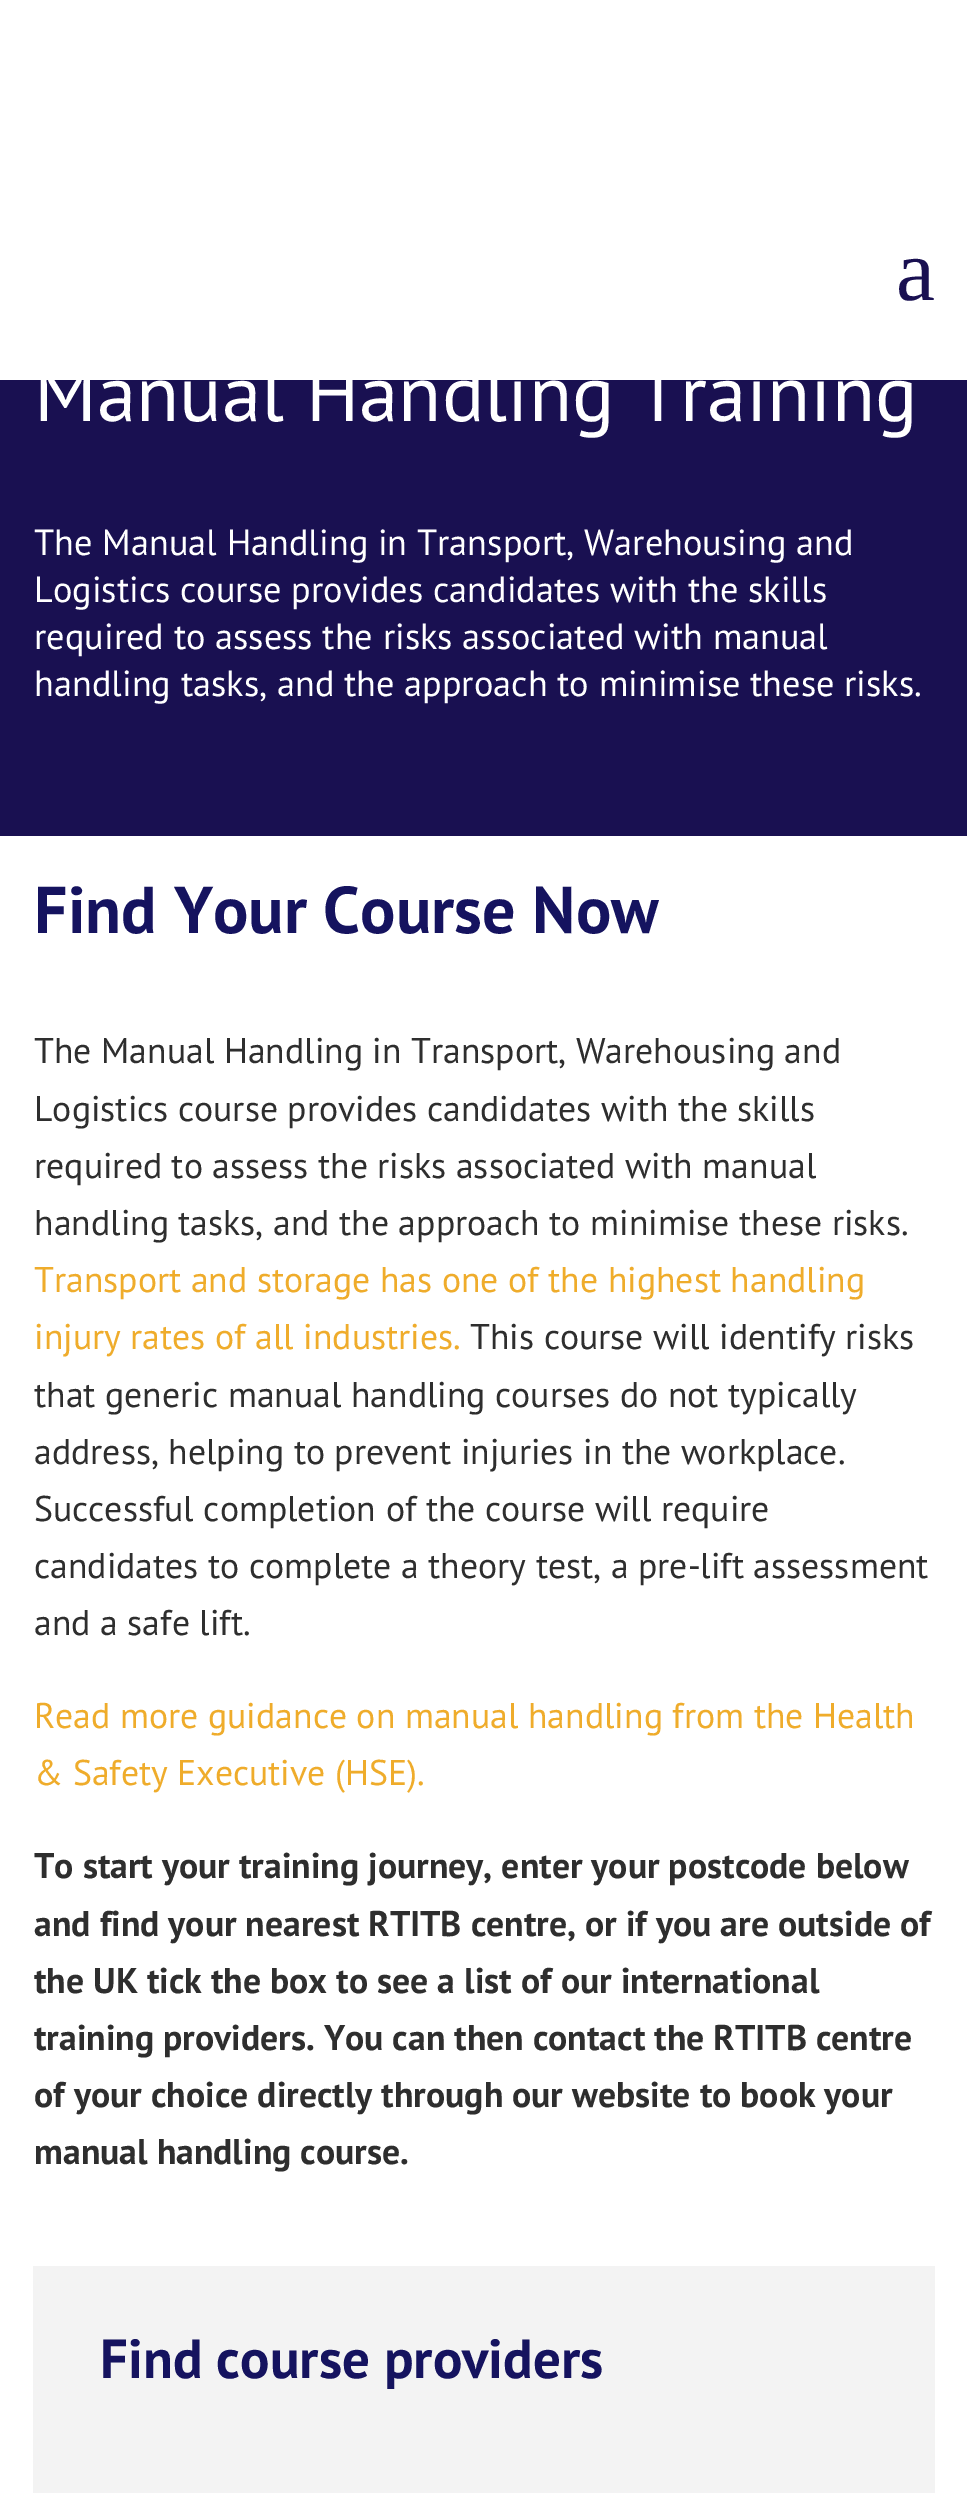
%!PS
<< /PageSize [967 2493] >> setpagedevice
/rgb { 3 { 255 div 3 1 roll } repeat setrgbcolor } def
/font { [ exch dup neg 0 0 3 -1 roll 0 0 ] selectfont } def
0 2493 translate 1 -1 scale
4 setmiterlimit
255 255 255 rgb
0 0 967 2493 rectfill
25 16 81 rgb
0 380 967 456 rectfill
243 243 243 rgb
33 2266 902 227 rectfill
/LiberationSerif-Regular 88 font
25 16 81 rgb
896 300 moveto (a) show
/PTSans-Regular 79.25 font
255 255 255 rgb
34 421 moveto (Manual Handling Training) show
/PTSans-Regular 36.3 font
[
  [(The Manual Handling in Transport, Warehousing and) 34 555]
  [(Logistics course provides candidates with the skills) 34 602]
  [(required to assess the risks associated with manual) 34 649]
  [(handling tasks, and the approach to minimise these risks.) 34 696]
] { aload pop moveto show } forall
/PTSans-Bold 66 font
21 19 95 rgb
34 933 moveto (Find Your Course Now) show
/PTSans-Regular 35.75 font
46 46 46 rgb
[
  [(The Manual Handling in Transport, Warehousing and) 34 1063]
  [(Logistics course provides candidates with the skills) 34 1121]
  [(required to assess the risks associated with manual) 34 1178]
  [(handling tasks, and the approach to minimise these risks.) 34 1235]
] { aload pop moveto show } forall
239 172 43 rgb
34 1292 moveto (Transport and storage has one of the highest handling) show
34 1349 moveto (injury rates of all industries.) show
46 46 46 rgb
[
  [(This course will identify risks) 470 1349]
  [(that generic manual handling courses do not typically) 34 1407]
  [(address, helping to prevent injuries in the workplace.) 34 1464]
  [(Successful completion of the course will require) 34 1521]
  [(candidates to complete a theory test, a pre-lift assessment) 34 1578]
  [(and a safe lift.) 34 1635]
] { aload pop moveto show } forall
239 172 43 rgb
34 1728 moveto (Read more guidance on manual handling from the Health) show
34 1785 moveto (& Safety Executive \(HSE\).) show
/PTSans-Bold 35.75 font
46 46 46 rgb
[
  [(To start your training journey, enter your postcode below) 34 1878]
  [(and find your nearest RTITB centre, or if you are outside of) 34 1936]
  [(the UK tick the box to see a list of our international) 34 1993]
  [(training providers. You can then contact the RTITB centre) 34 2050]
  [(of your choice directly through our website to book your) 34 2107]
  [(manual handling course.) 34 2164]
] { aload pop moveto show } forall
/PTSans-Bold 55 font
21 19 95 rgb
100 2378 moveto (Find course providers) show
showpage
